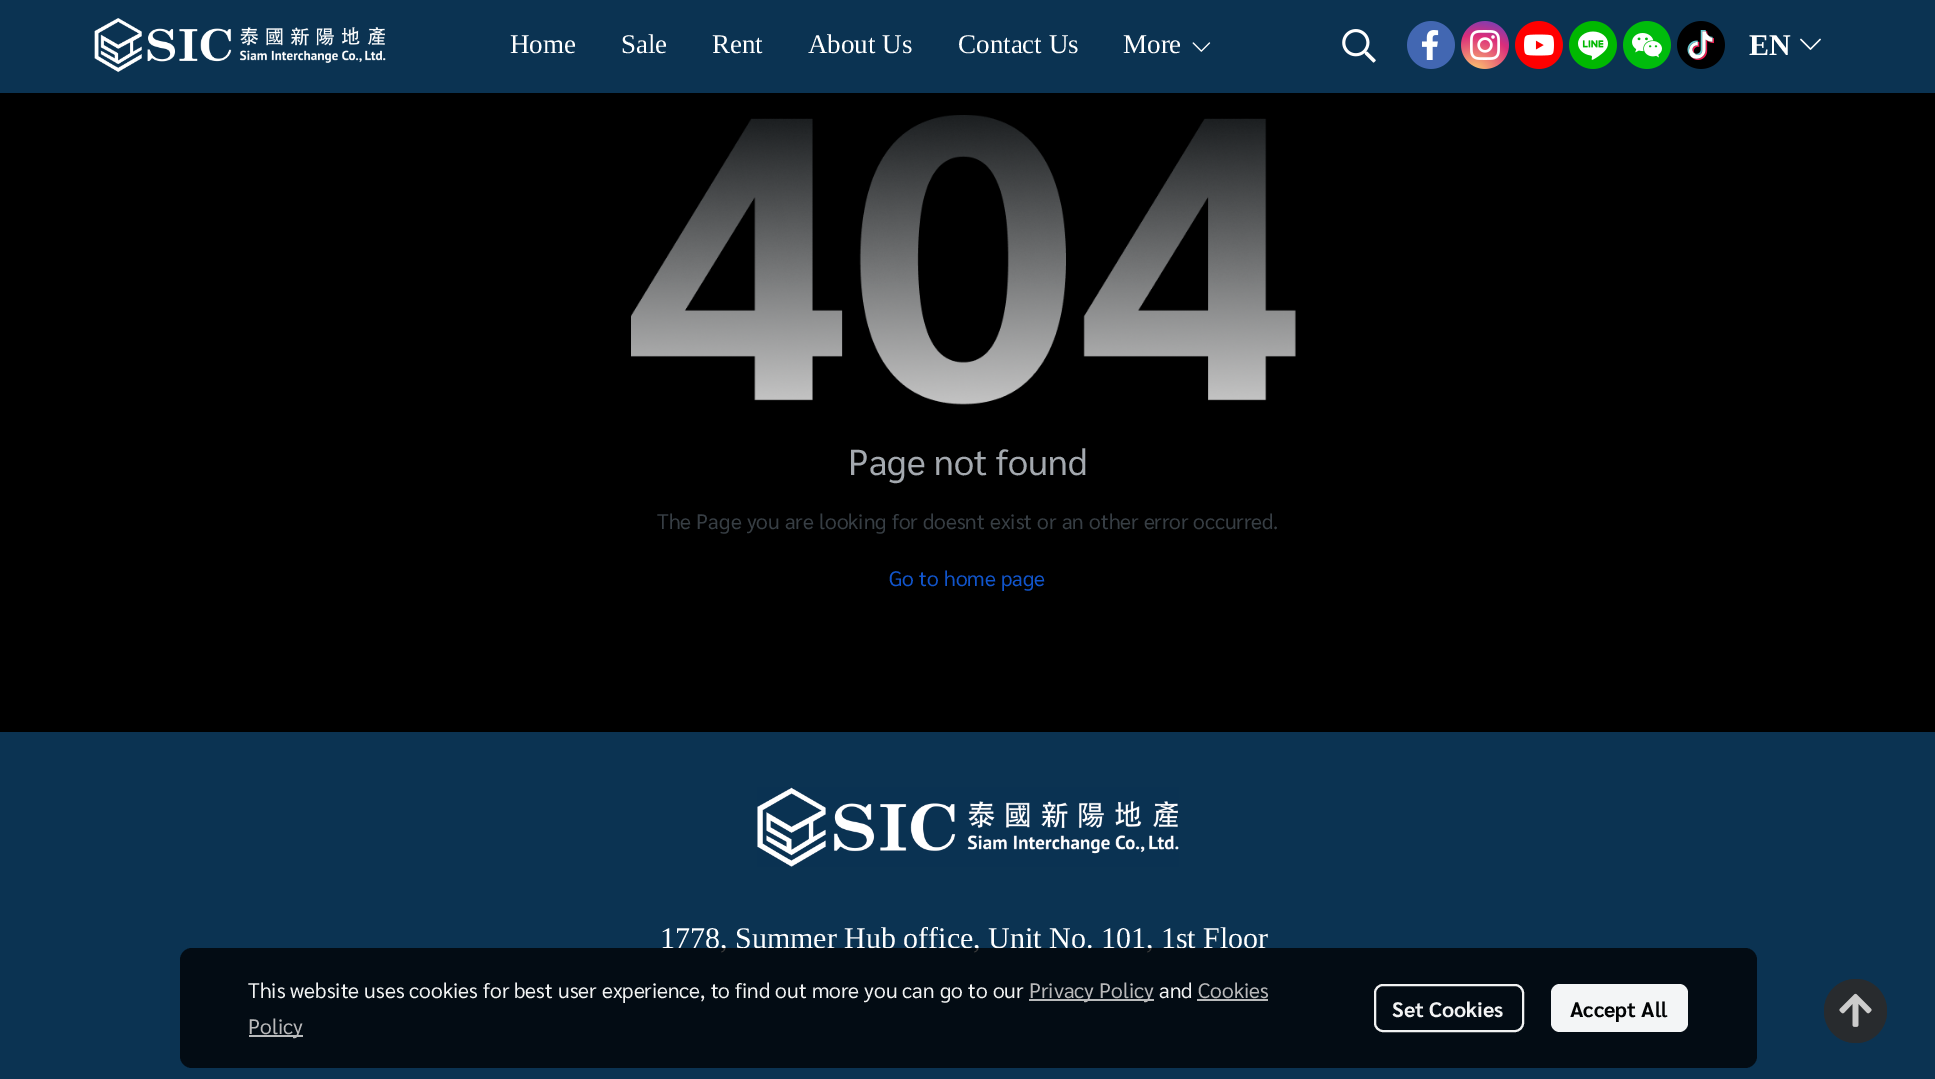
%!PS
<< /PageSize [1935 1079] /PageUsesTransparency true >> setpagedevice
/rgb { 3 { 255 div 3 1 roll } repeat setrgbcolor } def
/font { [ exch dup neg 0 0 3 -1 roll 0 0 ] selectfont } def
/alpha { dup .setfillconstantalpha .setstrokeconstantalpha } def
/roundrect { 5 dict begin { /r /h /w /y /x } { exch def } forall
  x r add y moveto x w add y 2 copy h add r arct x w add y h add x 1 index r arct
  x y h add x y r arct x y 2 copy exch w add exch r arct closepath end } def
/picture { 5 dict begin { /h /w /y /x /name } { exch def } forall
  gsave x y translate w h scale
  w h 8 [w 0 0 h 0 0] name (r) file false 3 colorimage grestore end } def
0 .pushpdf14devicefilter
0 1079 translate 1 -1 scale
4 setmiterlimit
0 0 0 rgb
0 0 1935 1079 rectfill
11 51 82 rgb
0 0 1935 93 rectfill
(img/1.rgb) 94 18 292 55 picture
(img/2.rgb) 1192 42 19 10 picture
(img/3.rgb) 1342 29 34 34 picture
(img/4.rgb) 1407 21 48 48 picture
(img/5.rgb) 1461 21 48 48 picture
(img/6.rgb) 1515 21 48 48 picture
(img/7.rgb) 1569 21 48 48 picture
(img/8.rgb) 1623 21 48 48 picture
(img/9.rgb) 1677 21 48 48 picture
(img/10.rgb) 1800 38 21 12 picture
(img/11.rgb) 631 115 665 290 picture
0 732 1935 347 rectfill
33 45 54 rgb
1856 979 moveto 1838 979 1824 993 1824 1011 curveto 1824 1029 1838 1043 1856 1043 curveto 1873 1043 1887 1029 1887 1011 curveto 1887 993 1873 979 1856 979 curveto closepath fill
(img/12.rgb) 1839 993 33 34 picture
(img/13.rgb) 757 787 422 80 picture
0.7 alpha
43 42 42 rgb
1856 979 moveto 1838 979 1824 993 1824 1011 curveto 1824 1029 1838 1043 1856 1043 curveto 1873 1043 1887 1029 1887 1011 curveto 1887 993 1873 979 1856 979 curveto closepath fill
1 alpha
(img/14.rgb) 1839 993 33 34 picture
/LiberationSerif-Regular 27 font
255 255 255 rgb
[
  [(Home) 510 53]
  [(Sale) 621 53]
  [(Rent) 712 53]
  [(About Us) 808 53]
  [(Contact Us) 958 53]
  [(More) 1123 53]
] { aload pop moveto show } forall
/LiberationSerif-Bold 30 font
1749 55 moveto (EN) show
/Sarabun-Regular 36 font
164 169 175 rgb
848 475 moveto (Page not found) show
/Sarabun-Regular 21 font
55 62 68 rgb
657 529 moveto (The Page you are looking for doesnt exist or an other error occurred.) show
17 85 204 rgb
889 586 moveto (Go to home page) show
/LiberationSerif-Regular 30 font
255 255 255 rgb
660 948 moveto (1778, Summer Hub office, Unit No. 101, 1st Floor) show
0.76 alpha
0 0 0 rgb
180 948 1577 120 12 roundrect fill
/Sarabun-Regular 21 font
1 alpha
242 243 243 rgb
248 998 moveto (This website uses cookies for best user experience, to find out more you can go to our) show
185 187 188 rgb
1029 999 125 2 rectfill
185 185 186 rgb
1029 998 moveto (Privacy Policy) show
242 243 243 rgb
1159 998 moveto (and) show
185 185 186 rgb
1198 998 moveto (Cookies) show
185 187 188 rgb
1197 999 71 2 rectfill
249 1035 54 2 rectfill
185 185 186 rgb
248 1034 moveto (Policy) show
0.95 alpha
255 255 255 rgb
2 setlinewidth
1375 985 148 46 8 roundrect stroke
/Sarabun-Bold 21 font
1 alpha
242 243 243 rgb
1392 1017 moveto (Set Cookies) show
243 245 246 rgb
1551 984 137 48 9 roundrect fill
1 3 4 rgb
1570 1017 moveto (Accept All) show
.poppdf14devicefilter showpage
